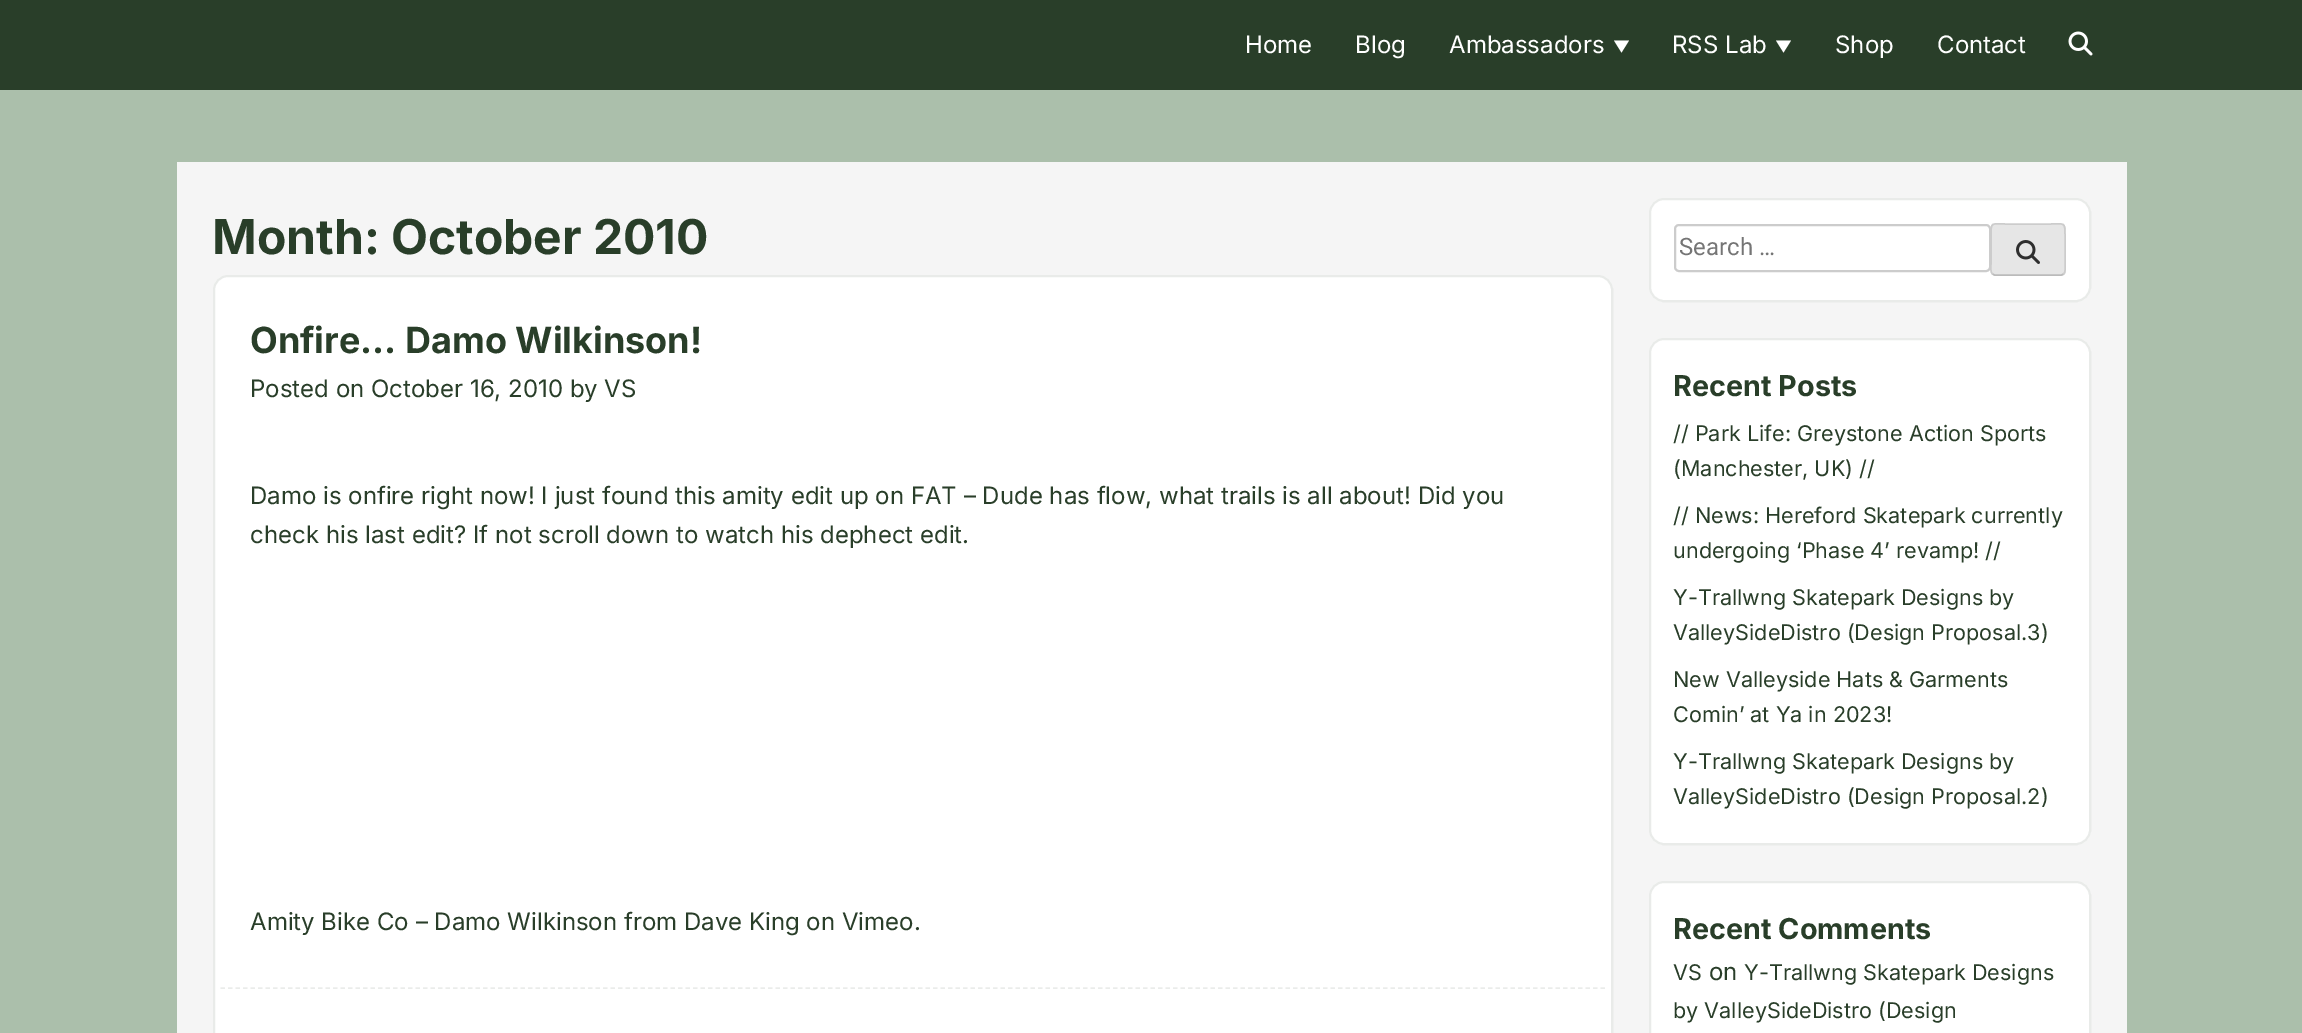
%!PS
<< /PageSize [2302 1033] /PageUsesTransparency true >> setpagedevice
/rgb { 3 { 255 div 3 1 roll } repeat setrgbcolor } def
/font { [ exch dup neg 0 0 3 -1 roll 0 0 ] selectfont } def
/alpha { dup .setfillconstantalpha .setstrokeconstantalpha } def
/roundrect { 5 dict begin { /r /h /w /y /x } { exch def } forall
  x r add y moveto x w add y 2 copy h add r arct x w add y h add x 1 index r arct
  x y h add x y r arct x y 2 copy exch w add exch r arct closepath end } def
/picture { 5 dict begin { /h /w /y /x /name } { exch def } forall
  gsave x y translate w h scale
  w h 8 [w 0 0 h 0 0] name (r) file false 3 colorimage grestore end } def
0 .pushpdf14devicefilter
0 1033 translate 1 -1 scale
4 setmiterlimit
41 62 41 rgb
0 0 2302 1033 rectfill
255 255 255 rgb
1614 40.5 moveto 1629 40.5 lineto 1621.5 52.5 lineto closepath fill
1776 40.5 moveto 1791 40.5 lineto 1783.5 52.5 lineto closepath fill
(img/1.rgb) 2068 31 25 25 picture
171 191 171 rgb
0 90 2302 943 rectfill
245 245 245 rgb
177 162 1950 871 rectfill
255 255 255 rgb
213 275 1400 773 15 roundrect fill
0.1 alpha
41 62 41 rgb
2 setlinewidth
214 276 1398 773 14 roundrect stroke
1 alpha
234 236 234 rgb
1.5 setlinewidth
[4.5 3] 0 setdash
220.5 988 moveto 1605 988 lineto stroke
255 255 255 rgb
1649 198 442 104 15 roundrect fill
0.1 alpha
41 62 41 rgb
2 setlinewidth
[] 0 setdash
1650 199 440 102 14 roundrect stroke
1 alpha
204 204 204 rgb
1675 225 315 46 4 roundrect stroke
230 230 230 rgb
1991 224 75 52 5 roundrect fill
187 187 187 rgb
1.5 setlinewidth
2063.5 274 moveto 2061.5 275 lineto 1994.5 275 lineto 1992.5 274 lineto stroke
204 204 204 rgb
1992.5 274 moveto 1990 272 1991 266 1991 264 curveto 1991 235 lineto 1991 221.5 1991.5 224 2006 224 curveto 2050 224 lineto 2064.5 224 2065 221.5 2065 235 curveto 2065 264 lineto 2065 266 2066 272 2063.5 274 curveto stroke
(img/2.rgb) 2016 240 24 24 picture
255 255 255 rgb
1649 338 442 507 15 roundrect fill
0.1 alpha
41 62 41 rgb
2 setlinewidth
1650 339 440 505 14 roundrect stroke
1 alpha
255 255 255 rgb
1649 881 442 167 15 roundrect fill
0.1 alpha
41 62 41 rgb
1650 882 440 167 14 roundrect stroke
/Inter-Regular 24 font
1 alpha
255 255 255 rgb
[
  [(Home) 1245 53]
  [(Blog) 1355 53]
  [(Ambassadors) 1449 53]
  [(RSS Lab) 1672 53]
  [(Shop) 1835 53]
  [(Contact) 1937 53]
] { aload pop moveto show } forall
/Inter-Bold 48 font
41 62 41 rgb
212 254 moveto (Month: October 2010) show
/Inter-Bold 36 font
250 353 moveto (Onfire… Damo Wilkinson!) show
/Inter-Regular 24 font
[
  [(Posted on October 16, 2010 by VS) 250 397]
  [(Damo is onfire right now! I just found this amity edit up on FAT – Dude has flow, what trails is all about! Did you) 250 504]
  [(check his last edit? If not scroll down to watch his dephect edit.) 250 543]
  [(Amity Bike Co – Damo Wilkinson from Dave King on Vimeo.) 250 930]
] { aload pop moveto show } forall
/Roboto-Regular 24 font
117 117 117 rgb
1679 255 moveto (Search …) show
/Inter-Bold 28.75 font
41 62 41 rgb
1673 396 moveto (Recent Posts) show
/Inter-Regular 21.6 font
[
  [(// Park Life: Greystone Action Sports) 1673 441]
  [(\(Manchester, UK\) //) 1673 476]
  [(// News: Hereford Skatepark currently) 1673 523]
  [(undergoing ‘Phase 4’ revamp! //) 1673 558]
  [(Y-Trallwng Skatepark Designs by) 1673 605]
  [(ValleySideDistro \(Design Proposal.3\)) 1673 640]
  [(New Valleyside Hats & Garments) 1673 687]
  [(Comin’ at Ya in 2023!) 1673 722]
  [(Y-Trallwng Skatepark Designs by) 1673 769]
  [(ValleySideDistro \(Design Proposal.2\)) 1673 804]
] { aload pop moveto show } forall
/Inter-Bold 28.75 font
1673 939 moveto (Recent Comments) show
/Inter-Regular 21.6 font
1673 980 moveto (VS) show
/Inter-Regular 24 font
1709 980 moveto (on) show
/Inter-Regular 21.6 font
1744 980 moveto (Y-Trallwng Skatepark Designs) show
1673 1018 moveto (by ValleySideDistro \(Design) show
.poppdf14devicefilter showpage
